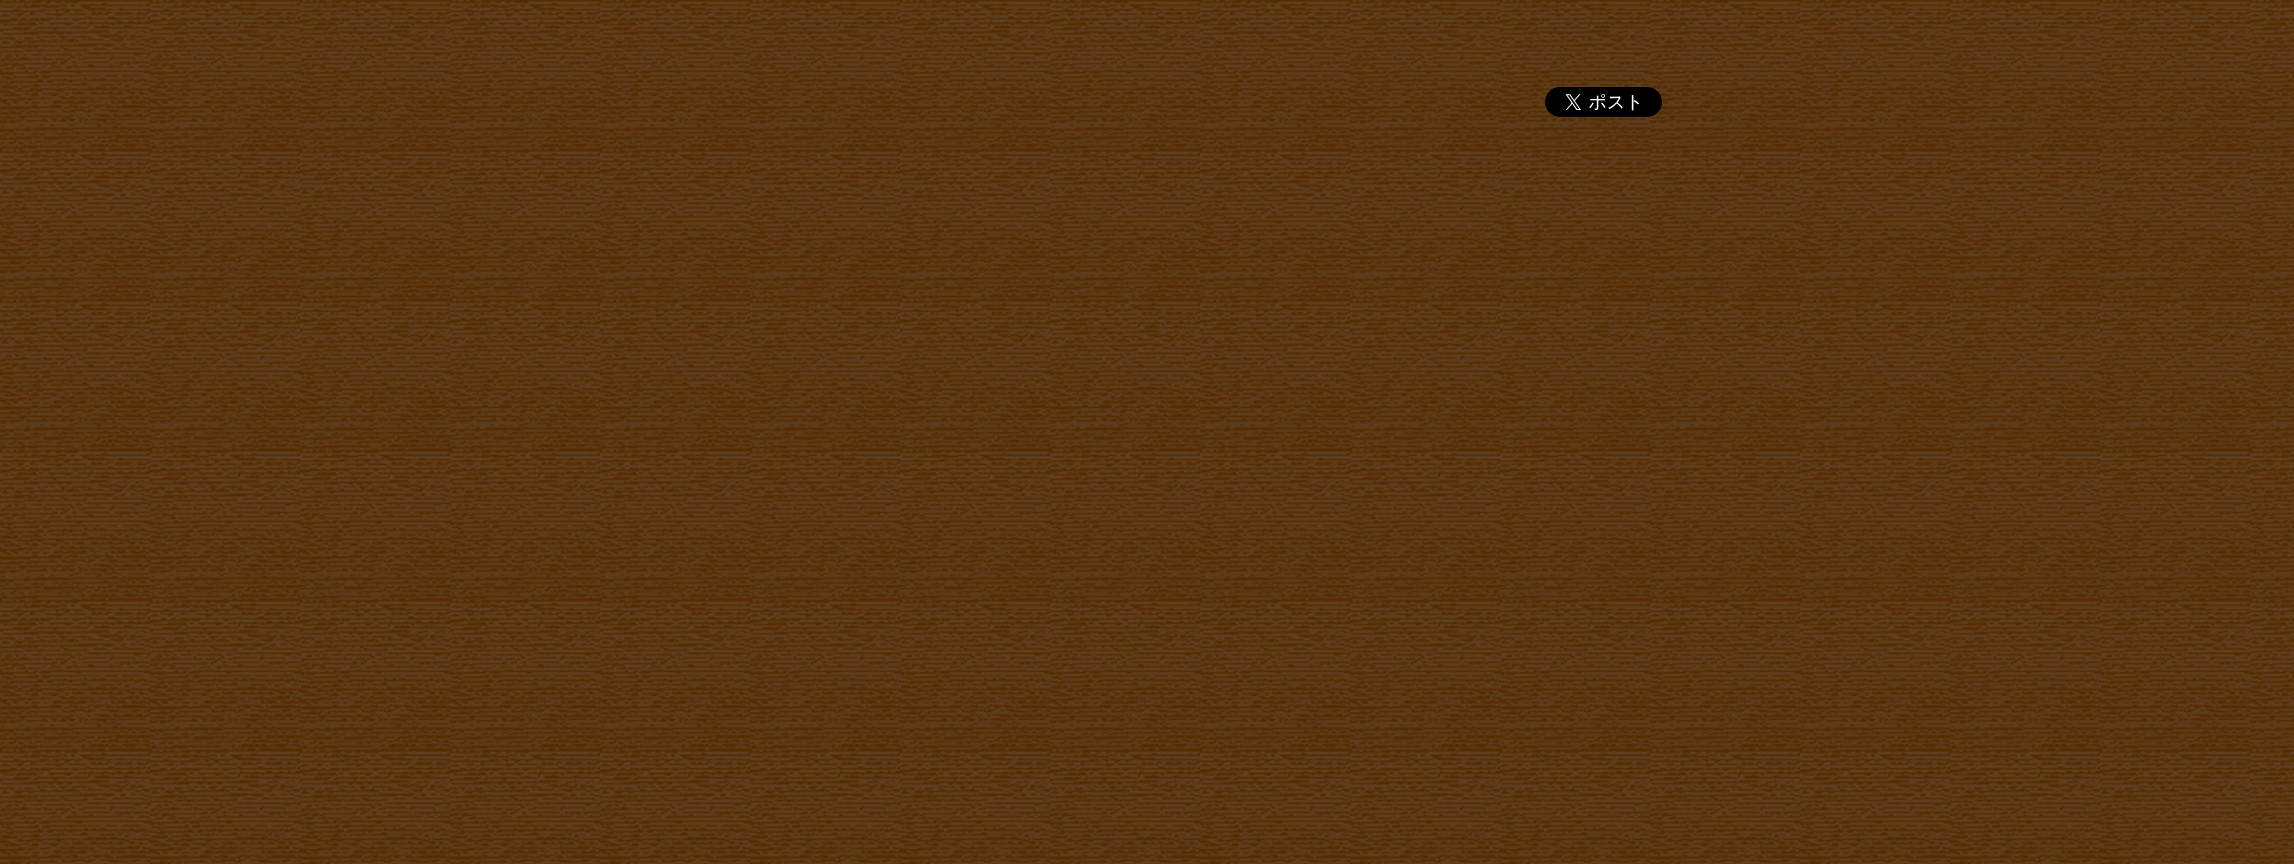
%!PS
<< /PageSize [2294 864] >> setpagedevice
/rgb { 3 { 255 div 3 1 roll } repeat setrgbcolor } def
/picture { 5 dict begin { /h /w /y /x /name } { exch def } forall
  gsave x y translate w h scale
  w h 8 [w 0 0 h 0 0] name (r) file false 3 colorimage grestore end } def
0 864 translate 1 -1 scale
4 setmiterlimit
255 255 255 rgb
0 0 2294 864 rectfill
(img/1.rgb) 0 0 2294 864 picture
(img/2.rgb) 1545 87 117 30 picture
showpage
